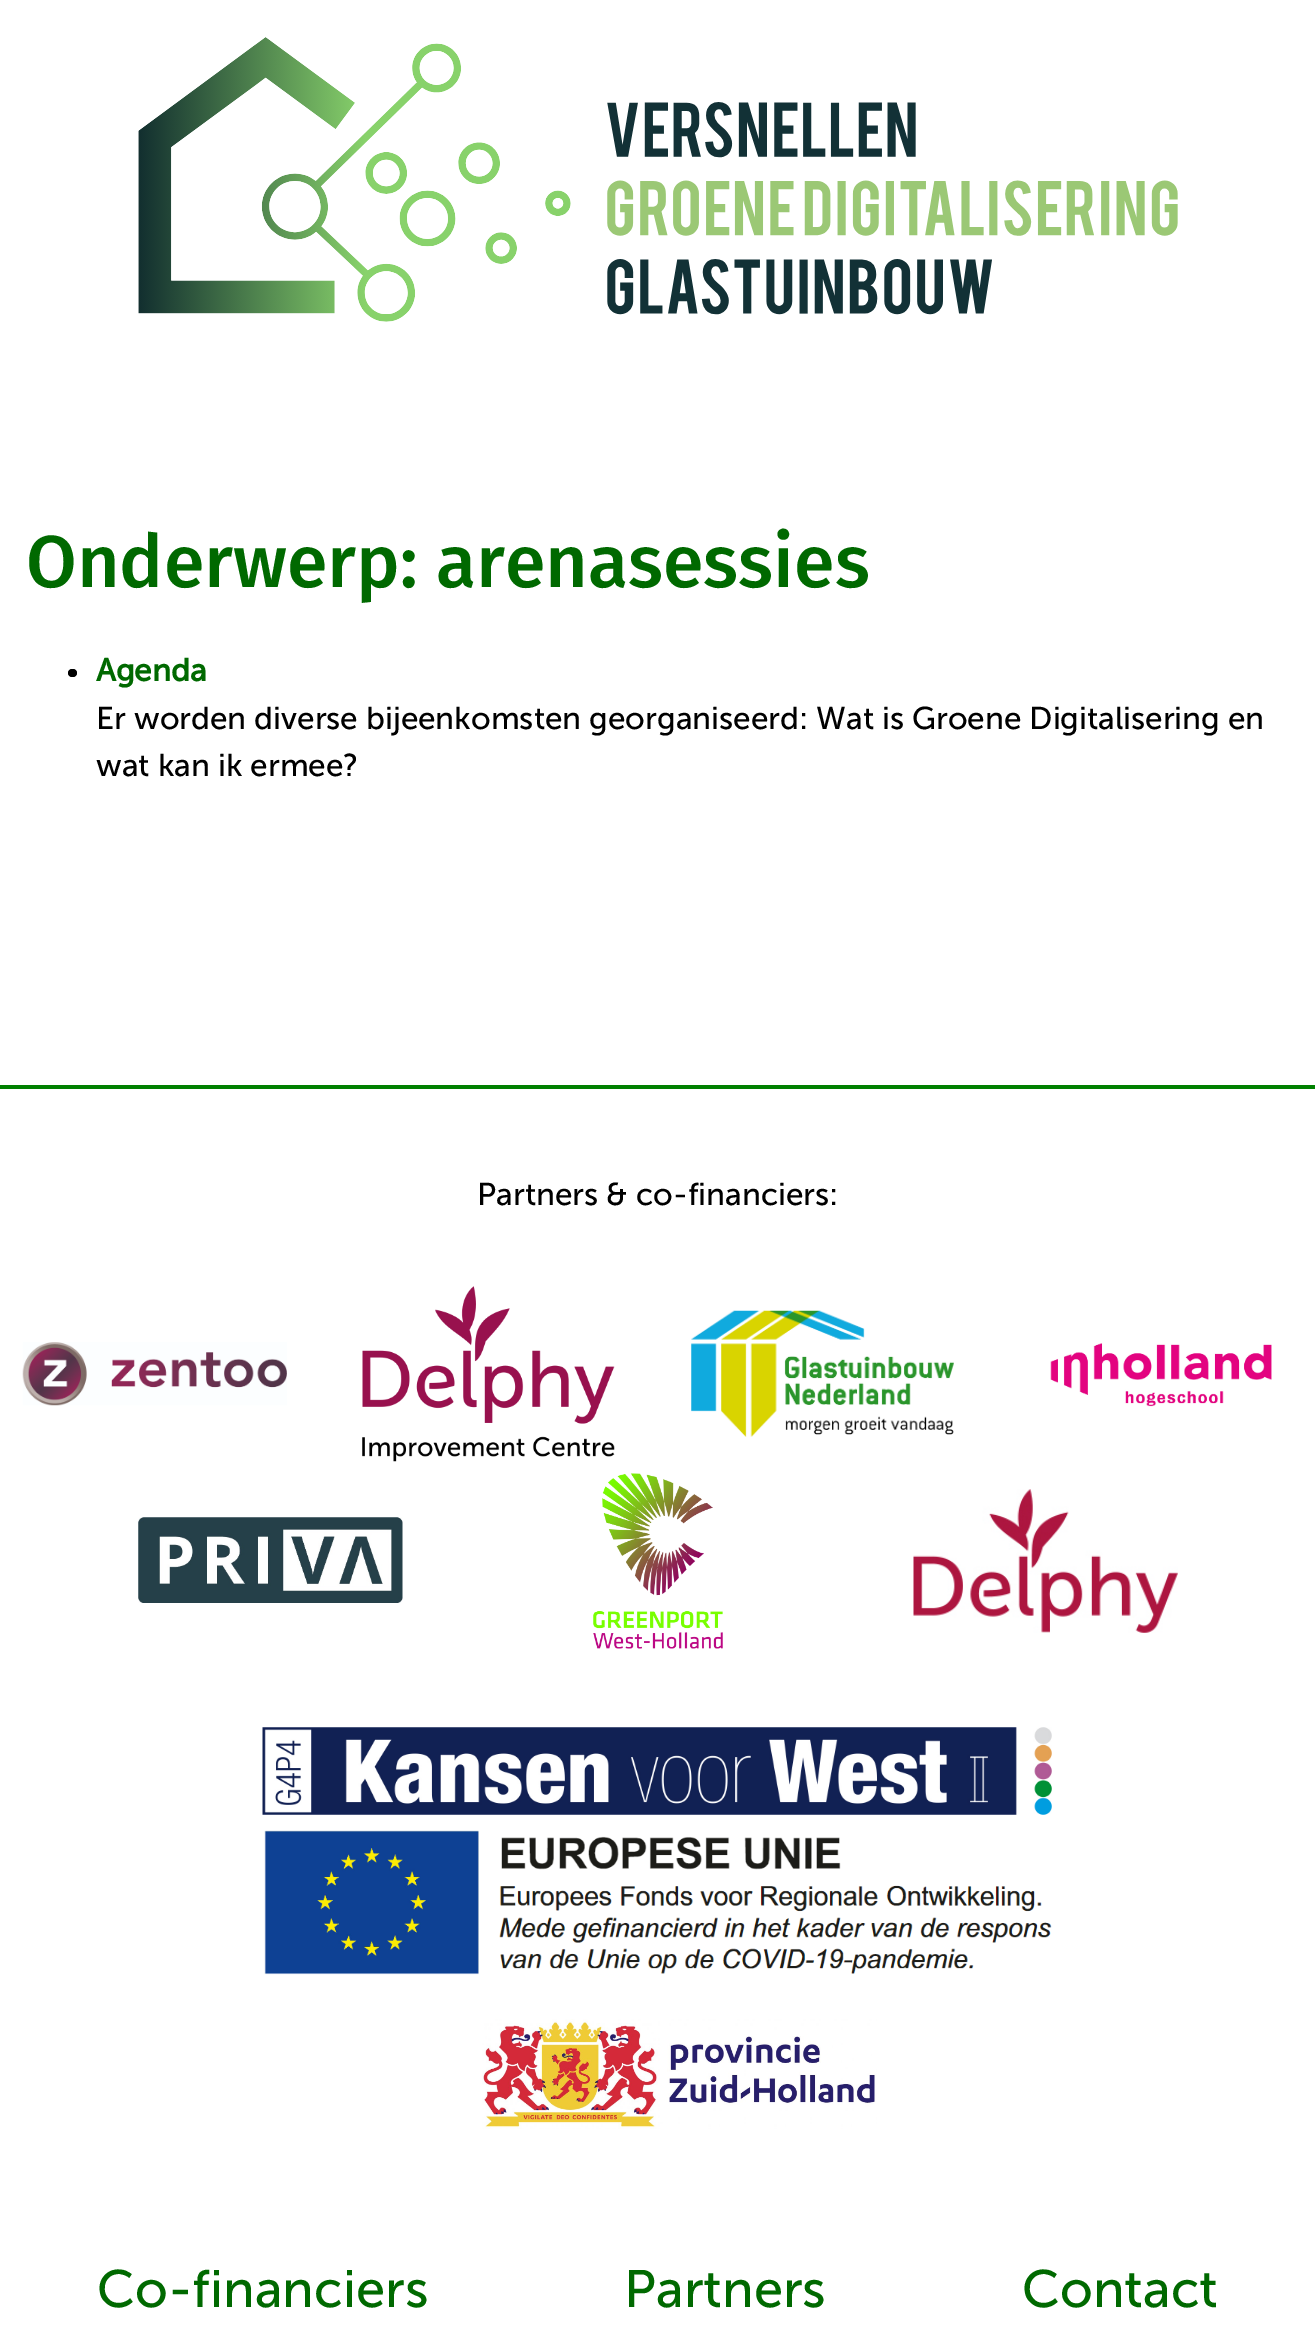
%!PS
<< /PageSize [1315 2345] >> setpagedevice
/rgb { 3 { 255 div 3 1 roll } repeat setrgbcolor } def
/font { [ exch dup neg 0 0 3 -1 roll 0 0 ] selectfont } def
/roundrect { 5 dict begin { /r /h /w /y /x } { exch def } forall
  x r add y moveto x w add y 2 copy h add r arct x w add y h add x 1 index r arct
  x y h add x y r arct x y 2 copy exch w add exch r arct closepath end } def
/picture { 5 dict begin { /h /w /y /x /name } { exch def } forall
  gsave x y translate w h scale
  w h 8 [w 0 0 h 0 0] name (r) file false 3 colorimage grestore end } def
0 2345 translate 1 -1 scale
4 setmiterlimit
255 255 255 rgb
0 0 1315 2345 rectfill
(img/1.rgb) 138 37 1040 285 picture
0 0 0 rgb
68 669 9 8 4 roundrect fill
0 128 0 rgb
0 1085 1315 4 rectfill
(img/2.rgb) 22 1342 265 64 picture
(img/3.rgb) 362 1286 253 176 picture
(img/4.rgb) 691 1310 263 127 picture
(img/5.rgb) 1050 1343 222 64 picture
(img/6.rgb) 138 1517 265 86 picture
(img/7.rgb) 593 1473 130 176 picture
(img/8.rgb) 913 1489 265 144 picture
(img/9.rgb) 262 1727 790 88 picture
(img/10.rgb) 264 1830 788 145 picture
(img/11.rgb) 482 2019 395 110 picture
/FiraSans-Medium 73.5 font
0 105 0 rgb
26 587 moveto (Onderwerp: arenasessies) show
/MuseoSans-Bold 31.5 font
96 681 moveto (Agenda) show
/MuseoSans-Medium 31.5 font
0 0 0 rgb
[
  [(Er worden diverse bijeenkomsten georganiseerd: Wat is Groene Digitalisering en) 96 729]
  [(wat kan ik ermee?) 96 776]
  [(Partners & co-financiers:) 477 1205]
] { aload pop moveto show } forall
/MuseoSans-Medium 52.5 font
0 105 0 rgb
[
  [(Co-financiers) 97 2307]
  [(Partners) 624 2307]
  [(Contact) 1022 2307]
] { aload pop moveto show } forall
showpage
